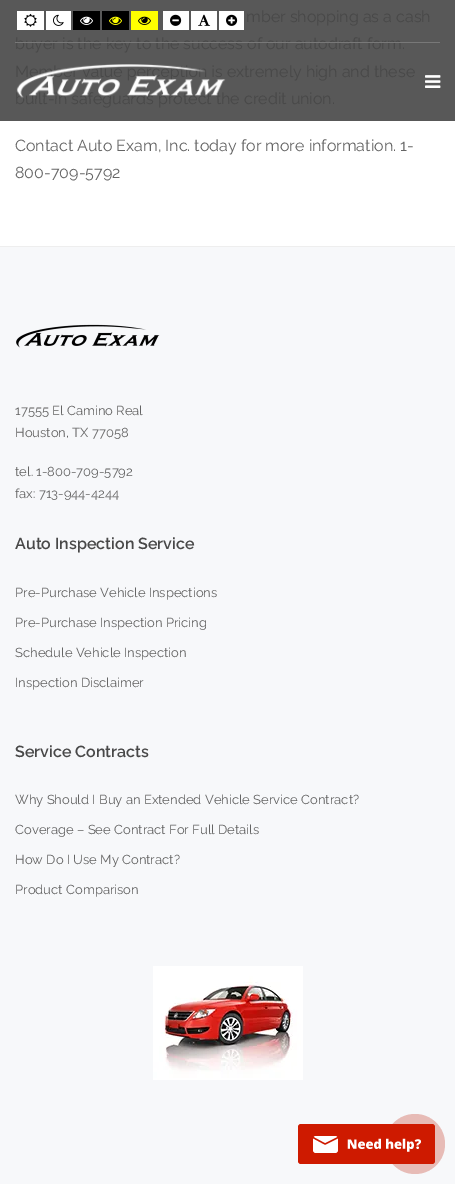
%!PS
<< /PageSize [455 1184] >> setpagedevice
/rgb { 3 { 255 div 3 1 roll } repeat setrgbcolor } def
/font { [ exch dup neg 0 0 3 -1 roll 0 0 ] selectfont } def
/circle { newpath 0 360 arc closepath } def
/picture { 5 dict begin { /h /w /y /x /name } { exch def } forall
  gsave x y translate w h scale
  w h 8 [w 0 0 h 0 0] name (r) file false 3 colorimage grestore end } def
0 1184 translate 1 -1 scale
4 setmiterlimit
255 255 255 rgb
0 0 455 1184 rectfill
88 88 88 rgb
0 0 455 121 rectfill
255 255 255 rgb
17 11 27 19 rectfill
(img/1.rgb) 24 13 13 14 picture
46 11 25 19 rectfill
(img/2.rgb) 53 14 11 12 picture
0 0 0 rgb
73 11 27 19 rectfill
(img/3.rgb) 80 16 13 9 picture
102 11 27 19 rectfill
(img/4.rgb) 109 16 13 9 picture
255 255 0 rgb
131 11 27 19 rectfill
(img/5.rgb) 138 16 13 9 picture
255 255 255 rgb
163 11 26 19 rectfill
(img/6.rgb) 170 14 12 12 picture
191 11 26 19 rectfill
(img/7.rgb) 198 14 13 12 picture
219 11 25 19 rectfill
(img/8.rgb) 226 14 12 12 picture
(img/10.rgb) 425 75 16 13 picture
247 248 250 rgb
0 247 455 937 rectfill
238 238 238 rgb
0 246 455 1 rectfill
(img/11.rgb) 16 324 144 24 picture
(img/12.rgb) 153 966 150 114 picture
231 187 182 rgb
415 1144 30 circle fill
(img/13.rgb) 298 1124 137 40 picture
/Raleway-Regular 16 font
72 72 72 rgb
[
  [(mber shopping as a cash) 246 22]
  [(buyer is the key to the success of our autodraft form.) 15 49]
  [(Member value perception is extremely high and these) 15 77]
  [(built-in safeguards protect the credit union.) 15 104]
] { aload pop moveto show } forall
100 100 100 rgb
15 151 moveto (Contact Auto Exam, Inc. today for more information. 1-) show
15 178 moveto (800-709-5792) show
120 120 120 rgb
15 42 425 1 rectfill
(img/9.rgb) 16 64 210 35 picture
/Raleway-Regular 13 font
100 100 100 rgb
[
  [(17555 El Camino Real) 15 415]
  [(Houston, TX 77058) 15 437]
  [(tel. 1-800-709-5792) 15 476]
  [(fax: 713-944-4244) 15 498]
] { aload pop moveto show } forall
/Raleway-SemiBold 16 font
72 72 72 rgb
15 549 moveto (Auto Inspection Service) show
/Raleway-Regular 13 font
100 100 100 rgb
[
  [(Pre-Purchase Vehicle Inspections) 15 597]
  [(Pre-Purchase Inspection Pricing) 15 627]
  [(Schedule Vehicle Inspection) 15 657]
  [(Inspection Disclaimer) 15 687]
] { aload pop moveto show } forall
/Raleway-SemiBold 16 font
72 72 72 rgb
15 757 moveto (Service Contracts) show
/Raleway-Regular 13 font
100 100 100 rgb
[
  [(Why Should I Buy an Extended Vehicle Service Contract?) 15 804]
  [(Coverage – See Contract For Full Details) 15 834]
  [(How Do I Use My Contract?) 15 864]
  [(Product Comparison) 15 894]
] { aload pop moveto show } forall
showpage
